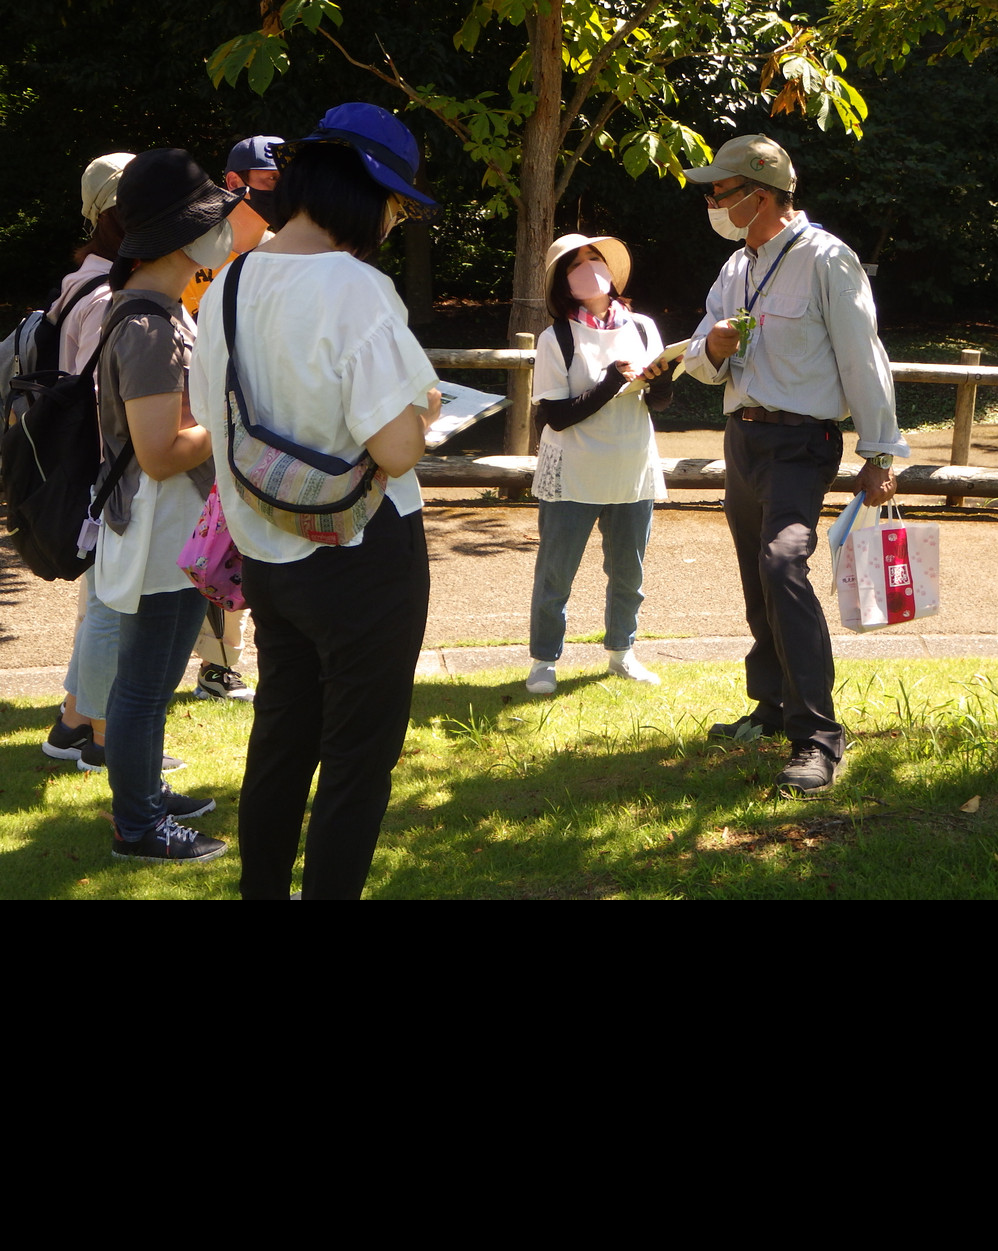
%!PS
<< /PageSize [998 1251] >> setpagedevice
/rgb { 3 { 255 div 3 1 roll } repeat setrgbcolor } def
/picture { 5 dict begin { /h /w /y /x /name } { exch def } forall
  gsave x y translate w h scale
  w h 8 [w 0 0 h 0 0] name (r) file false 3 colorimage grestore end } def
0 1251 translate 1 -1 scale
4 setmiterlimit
0 0 0 rgb
0 0 998 1251 rectfill
(img/1.rgb) 0 0 998 900 picture
showpage
